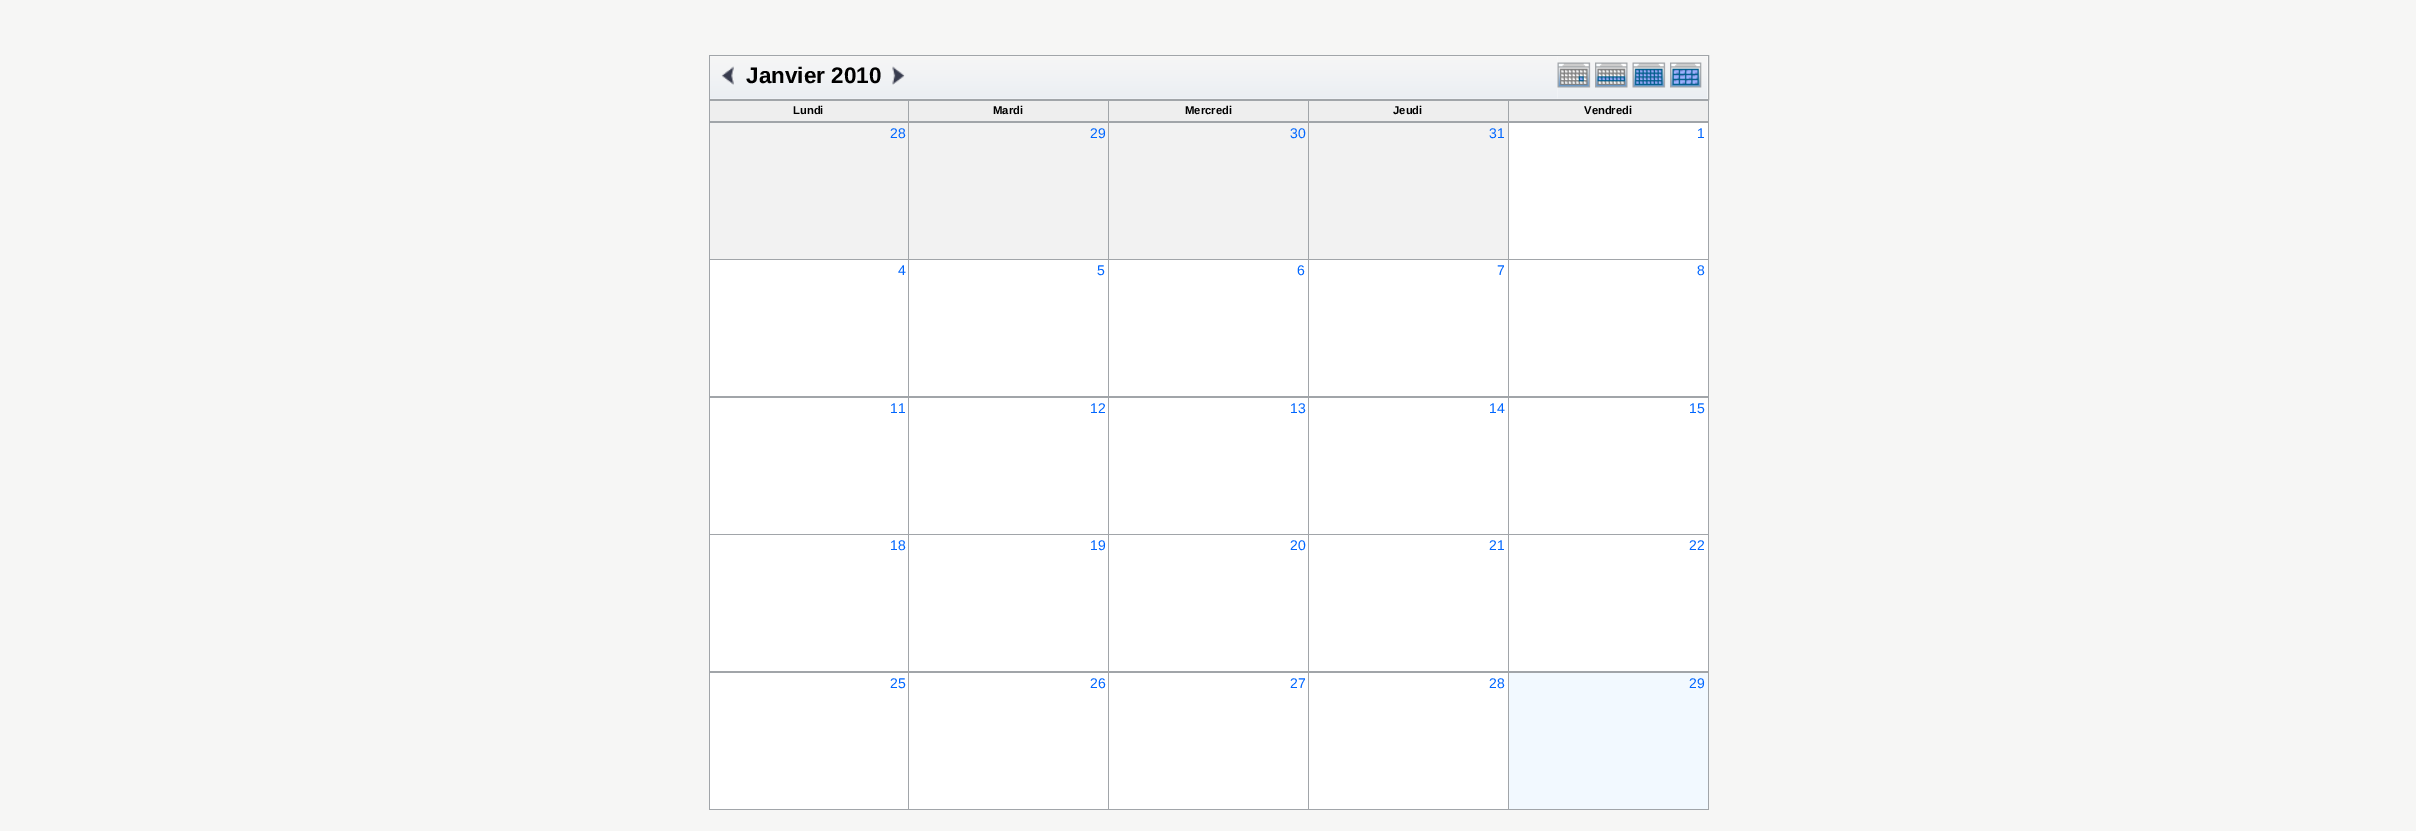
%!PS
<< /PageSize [2416 831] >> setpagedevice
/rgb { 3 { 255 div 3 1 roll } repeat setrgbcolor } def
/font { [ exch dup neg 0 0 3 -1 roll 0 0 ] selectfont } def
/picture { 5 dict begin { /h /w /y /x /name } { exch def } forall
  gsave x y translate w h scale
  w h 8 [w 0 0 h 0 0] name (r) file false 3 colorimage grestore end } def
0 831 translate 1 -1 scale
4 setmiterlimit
246 246 245 rgb
0 0 2416 831 rectfill
255 255 255 rgb
709.5 55.5 moveto 1708.5 55.5 lineto 1708.5 99.5 lineto 709.5 99.5 lineto closepath gsave fill grestore
161 165 169 rgb
stroke
(img/1.rgb) 710 56 848 43 picture
(img/2.rgb) 721 66 13 19 picture
(img/3.rgb) 892 66 13 19 picture
(img/4.rgb) 1557 56 151 43 picture
(img/5.rgb) 1557 62 34 26 picture
(img/6.rgb) 1595 62 33 26 picture
(img/7.rgb) 1632 62 34 26 picture
(img/8.rgb) 1670 62 32 26 picture
[
  [709 100 1000 710 161 165 169]
  [710 101 198 20 238 238 238]
  [909 101 199 20 238 238 238]
  [1109 101 199 20 238 238 238]
  [1309 101 199 20 238 238 238]
  [1509 101 199 20 238 238 238]
  [710 123 198 136 242 242 242]
  [909 123 199 136 242 242 242]
  [1109 123 199 136 242 242 242]
  [1309 123 199 136 242 242 242]
  [1509 123 199 136 255 255 255]
  [710 260 198 136 255 255 255]
  [909 260 199 136 255 255 255]
  [1109 260 199 136 255 255 255]
  [1309 260 199 136 255 255 255]
  [1509 260 199 136 255 255 255]
  [710 398 198 136 255 255 255]
  [909 398 199 136 255 255 255]
  [1109 398 199 136 255 255 255]
  [1309 398 199 136 255 255 255]
  [1509 398 199 136 255 255 255]
  [710 535 198 136 255 255 255]
  [909 535 199 136 255 255 255]
  [1109 535 199 136 255 255 255]
  [1309 535 199 136 255 255 255]
  [1509 535 199 136 255 255 255]
  [710 673 198 136 255 255 255]
  [909 673 199 136 255 255 255]
  [1109 673 199 136 255 255 255]
  [1309 673 199 136 255 255 255]
  [1509 673 199 136 242 249 255]
] { aload pop rgb rectfill } forall
/LiberationSans-Bold 22.5 font
0 0 0 rgb
746 83 moveto (Janvier 2010) show
/LiberationSans-Bold 11.25 font
[
  [(Lundi) 793 114]
  [(Mardi) 993 114]
  [(Mercredi) 1185 114]
  [(Jeudi) 1393 114]
  [(Vendredi) 1584 114]
] { aload pop moveto show } forall
/LiberationSans-Regular 14 font
0 102 255 rgb
[
  [(28) 890 138]
  [(29) 1090 138]
  [(30) 1290 138]
  [(31) 1489 138]
  [(1) 1697 138]
  [(4) 898 275]
  [(5) 1097 275]
  [(6) 1297 275]
  [(7) 1497 275]
  [(8) 1697 275]
  [(11) 890 413]
  [(12) 1090 413]
  [(13) 1290 413]
  [(14) 1489 413]
  [(15) 1689 413]
  [(18) 890 550]
  [(19) 1090 550]
  [(20) 1290 550]
  [(21) 1489 550]
  [(22) 1689 550]
  [(25) 890 688]
  [(26) 1090 688]
  [(27) 1290 688]
  [(28) 1489 688]
  [(29) 1689 688]
] { aload pop moveto show } forall
showpage
